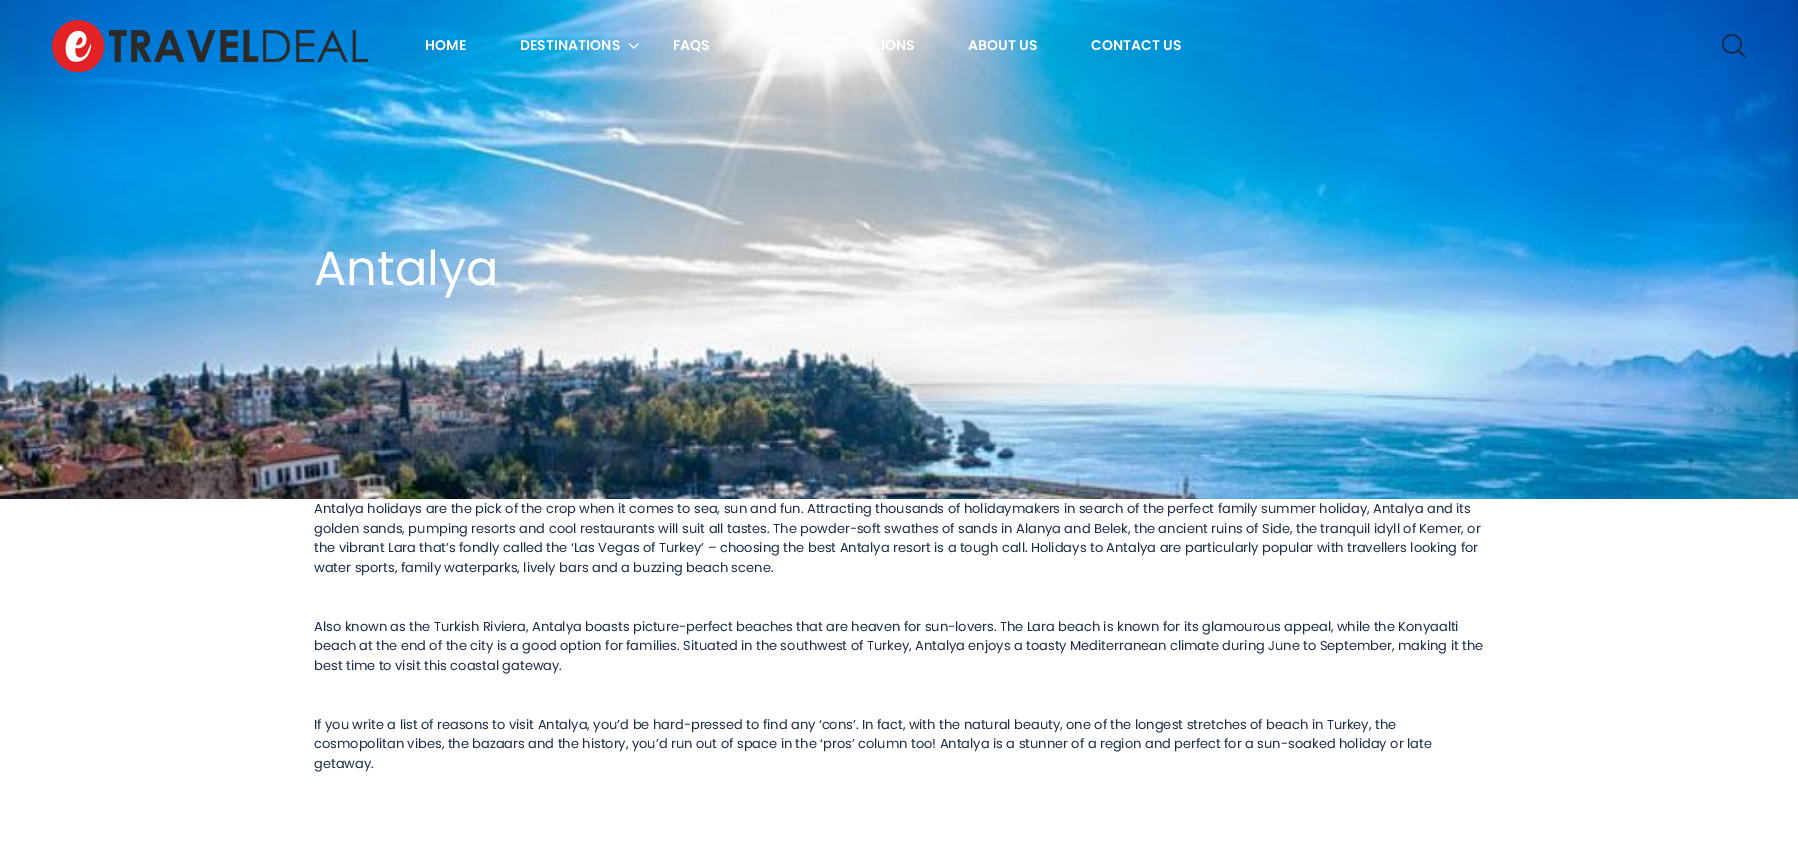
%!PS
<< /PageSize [1798 857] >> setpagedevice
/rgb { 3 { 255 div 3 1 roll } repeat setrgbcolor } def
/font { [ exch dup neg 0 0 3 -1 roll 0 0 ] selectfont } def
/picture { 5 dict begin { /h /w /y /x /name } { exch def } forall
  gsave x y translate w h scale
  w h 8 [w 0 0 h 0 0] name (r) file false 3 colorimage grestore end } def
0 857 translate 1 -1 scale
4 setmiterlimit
255 255 255 rgb
0 0 1798 857 rectfill
(img/3.rgb) 0 0 1798 499 picture
(img/1.rgb) 52 20 316 52 picture
(img/2.rgb) 628 43 11 6 picture
26 43 72 rgb
1.5 setlinewidth
1 setlinecap
1 setlinejoin
1741 44 moveto 1741 55.5 1723.5 56 1723 44.5 curveto 1722 32 1741 31.5 1741 44 curveto closepath 1738 50 moveto 1745 57 lineto stroke
/Poppins-SemiBold 14 font
255 255 255 rgb
[
  [(HOME) 425 50]
  [(DESTINATIONS) 520 50]
  [(FAQS) 673 50]
  [(IONS) 881 50]
  [(ABOUT US) 968 50]
  [(CONTACT US) 1091 50]
] { aload pop moveto show } forall
/Poppins-Regular 48 font
314 285 moveto (Antalya) show
/Poppins-Regular 13 font
26 43 72 rgb
[
  [(Antalya holidays are the pick of the crop when it comes to sea, sun and fun. Attracting thousands of holidaymakers in search of the perfect family summer holiday, Antalya and its) 314 513]
  [(golden sands, pumping resorts and cool restaurants will suit all tastes. The powder-soft swathes of sands in Alanya and Belek, the ancient ruins of Side, the tranquil idyll of Kemer, or) 314 533]
  [(the vibrant Lara that’s fondly called the ‘Las Vegas of Turkey’ – choosing the best Antalya resort is a tough call. Holidays to Antalya are particularly popular with travellers looking for) 314 552]
  [(water sports, family waterparks, lively bars and a buzzing beach scene.) 314 572]
  [(Also known as the Turkish Riviera, Antalya boasts picture-perfect beaches that are heaven for sun-lovers. The Lara beach is known for its glamourous appeal, while the Konyaalti) 314 631]
  [(beach at the end of the city is a good option for families. Situated in the southwest of Turkey, Antalya enjoys a toasty Mediterranean climate during June to September, making it the) 314 650]
  [(best time to visit this coastal gateway.) 314 670]
  [(If you write a list of reasons to visit Antalya, you’d be hard-pressed to find any ‘cons’. In fact, with the natural beauty, one of the longest stretches of beach in Turkey, the) 314 729]
  [(cosmopolitan vibes, the bazaars and the history, you’d run out of space in the ‘pros’ column too! Antalya is a stunner of a region and perfect for a sun-soaked holiday or late) 314 748]
  [(getaway.) 314 768]
] { aload pop moveto show } forall
showpage
